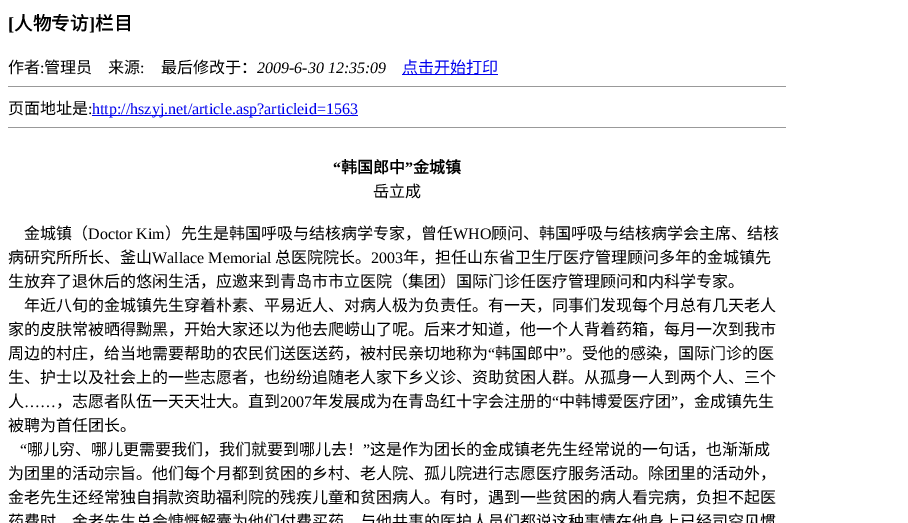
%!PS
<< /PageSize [908 523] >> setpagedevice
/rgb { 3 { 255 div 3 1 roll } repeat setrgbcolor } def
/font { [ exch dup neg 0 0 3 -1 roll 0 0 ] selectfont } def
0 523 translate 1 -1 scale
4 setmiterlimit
255 255 255 rgb
0 0 908 523 rectfill
[
  [402 74 96 1 0 0 238]
  [8 86 778 1 153 153 153]
  [92 115 266 1 0 0 238]
  [8 127 778 1 153 153 153]
] { aload pop rgb rectfill } forall
/LiberationSerif-Bold 18.5 font
0 0 0 rgb
8 30 moveto ([) show
/NotoSansCJKSC-Bold 18.5 font
14 30 moveto (人物专访) show
/LiberationSerif-Bold 18.5 font
89 30 moveto (]) show
/NotoSansCJKSC-Bold 18.5 font
95 30 moveto (栏目) show
/NotoSansCJKSC-Regular 16 font
8 73 moveto (作者) show
/LiberationSerif-Regular 16 font
40 73 moveto (:) show
/NotoSansCJKSC-Regular 16 font
44 73 moveto (管理员　来源) show
/LiberationSerif-Regular 16 font
140 73 moveto (:) show
/NotoSansCJKSC-Regular 16 font
161 73 moveto (最后修改于：) show
/LiberationSerif-Italic 16 font
257 73 moveto (2009-6-30 12:35:09) show
/NotoSansCJKSC-Regular 16 font
0 0 238 rgb
402 73 moveto (点击开始打印) show
0 0 0 rgb
8 114 moveto (页面地址是) show
/LiberationSerif-Regular 16 font
88 114 moveto (:) show
0 0 238 rgb
92 114 moveto (http://hszyj.net/article.asp?articleid=1563) show
/LiberationSerif-Bold 16 font
0 0 0 rgb
333 173 moveto (“) show
/NotoSansCJKSC-Bold 16 font
341 173 moveto (韩国郎中) show
/LiberationSerif-Bold 16 font
405 173 moveto (”) show
/NotoSansCJKSC-Bold 16 font
413 173 moveto (金城镇) show
/NotoSansCJKSC-Regular 16 font
373 197 moveto (岳立成) show
24 239 moveto (金城镇（) show
/LiberationSerif-Regular 16 font
88 239 moveto (Doctor Kim) show
/NotoSansCJKSC-Regular 16 font
165 239 moveto (）先生是韩国呼吸与结核病学专家，曾任) show
/LiberationSerif-Regular 16 font
453 239 moveto (WHO) show
/NotoSansCJKSC-Regular 16 font
491 239 moveto (顾问、韩国呼吸与结核病学会主席、结核) show
8 263 moveto (病研究所所长、釜山) show
/LiberationSerif-Regular 16 font
152 263 moveto (Wallace Memorial) show
/NotoSansCJKSC-Regular 16 font
275 263 moveto (总医院院长。) show
/LiberationSerif-Regular 16 font
371 263 moveto (2003) show
/NotoSansCJKSC-Regular 16 font
[
  [(年，担任山东省卫生厅医疗管理顾问多年的金城镇先) 403 263]
  [(生放弃了退休后的悠闲生活，应邀来到青岛市市立医院（集团）国际门诊任医疗管理顾问和内科学专家。) 8 287]
  [(年近八旬的金城镇先生穿着朴素、平易近人、对病人极为负责任。有一天，同事们发现每个月总有几天老人) 24 311]
  [(家的皮肤常被晒得黝黑，开始大家还以为他去爬崂山了呢。后来才知道，他一个人背着药箱，每月一次到我市) 8 335]
  [(周边的村庄，给当地需要帮助的农民们送医送药，被村民亲切地称为) 8 359]
] { aload pop moveto show } forall
/LiberationSerif-Regular 16 font
488 359 moveto (“) show
/NotoSansCJKSC-Regular 16 font
495 359 moveto (韩国郎中) show
/LiberationSerif-Regular 16 font
559 359 moveto (”) show
/NotoSansCJKSC-Regular 16 font
[
  [(。受他的感染，国际门诊的医) 566 359]
  [(生、护士以及社会上的一些志愿者，也纷纷追随老人家下乡义诊、资助贫困人群。从孤身一人到两个人、三个) 8 383]
  [(人) 8 407]
  [(，志愿者队伍一天天壮大。直到) 56 407]
] { aload pop moveto show } forall
/LiberationSerif-Regular 16 font
280 407 moveto (2007) show
/NotoSansCJKSC-Regular 16 font
312 407 moveto (年发展成为在青岛红十字会注册的) show
/LiberationSerif-Regular 16 font
552 407 moveto (“) show
/NotoSansCJKSC-Regular 16 font
559 407 moveto (中韩博爱医疗团) show
/LiberationSerif-Regular 16 font
671 407 moveto (”) show
/NotoSansCJKSC-Regular 16 font
678 407 moveto (，金成镇先生) show
/LiberationSerif-Regular 16 font
24 407 moveto (……) show
/NotoSansCJKSC-Regular 16 font
8 431 moveto (被聘为首任团长。) show
/LiberationSerif-Regular 16 font
20 455 moveto (“) show
/NotoSansCJKSC-Regular 16 font
27 455 moveto (哪儿穷、哪儿更需要我们，我们就要到哪儿去！) show
/LiberationSerif-Regular 16 font
363 455 moveto (”) show
/NotoSansCJKSC-Regular 16 font
[
  [(这是作为团长的金成镇老先生经常说的一句话，也渐渐成) 370 455]
  [(为团里的活动宗旨。他们每个月都到贫困的乡村、老人院、孤儿院进行志愿医疗服务活动。除团里的活动外，) 8 479]
  [(金老先生还经常独自捐款资助福利院的残疾儿童和贫困病人。有时，遇到一些贫困的病人看完病，负担不起医) 8 503]
  [(药费时，金老先生总会慷慨解囊为他们付费买药。与他共事的医护人员们都说这种事情在他身上已经司空见惯) 8 527]
] { aload pop moveto show } forall
showpage
